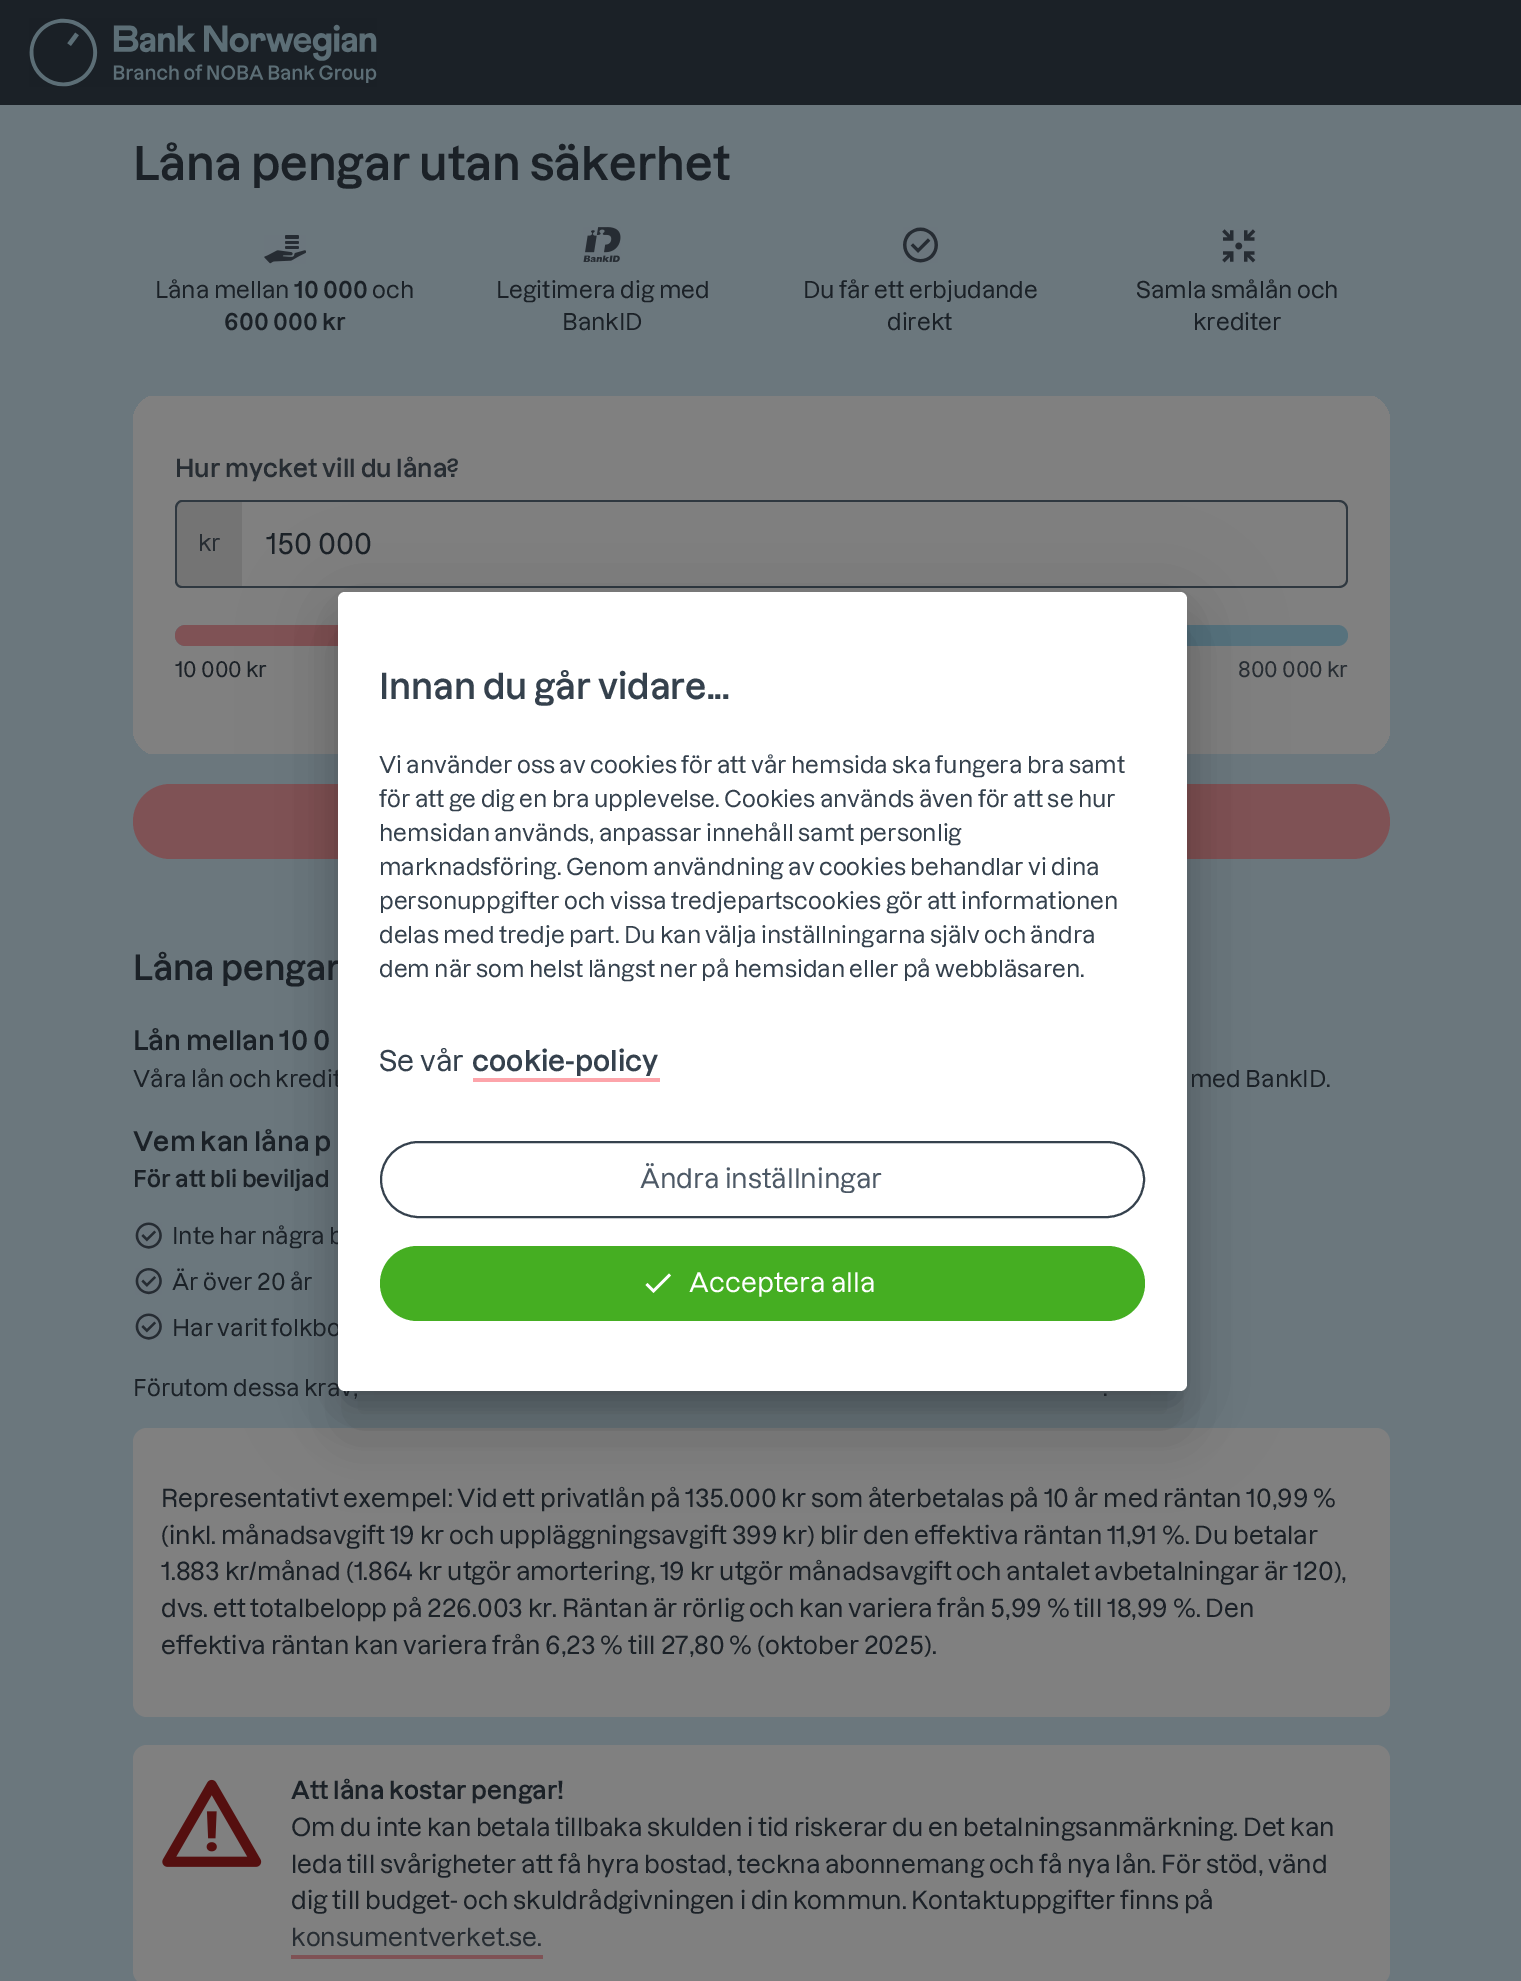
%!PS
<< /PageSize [1521 1981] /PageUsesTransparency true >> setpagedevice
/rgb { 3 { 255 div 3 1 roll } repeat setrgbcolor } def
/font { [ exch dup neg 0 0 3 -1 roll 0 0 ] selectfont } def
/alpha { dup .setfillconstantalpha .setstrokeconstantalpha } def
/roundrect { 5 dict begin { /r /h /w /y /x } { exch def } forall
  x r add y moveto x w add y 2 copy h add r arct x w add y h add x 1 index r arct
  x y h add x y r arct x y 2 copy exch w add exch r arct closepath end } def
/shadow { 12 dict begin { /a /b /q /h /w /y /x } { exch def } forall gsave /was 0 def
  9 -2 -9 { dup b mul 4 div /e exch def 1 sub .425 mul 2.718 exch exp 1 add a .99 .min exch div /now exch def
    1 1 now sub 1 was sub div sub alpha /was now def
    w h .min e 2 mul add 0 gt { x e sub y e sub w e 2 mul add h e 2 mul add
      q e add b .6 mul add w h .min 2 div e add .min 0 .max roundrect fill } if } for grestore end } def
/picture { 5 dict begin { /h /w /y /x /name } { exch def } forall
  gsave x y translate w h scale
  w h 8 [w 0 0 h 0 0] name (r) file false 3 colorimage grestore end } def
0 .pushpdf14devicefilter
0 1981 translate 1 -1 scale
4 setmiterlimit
107 119 125 rgb
0 0 1521 1981 rectfill
27 33 39 rgb
0 0 1521 105 rectfill
(img/1.rgb) 29 18 348 69 picture
(img/2.rgb) 264 235 42 29 picture
(img/3.rgb) 583 227 38 35 picture
(img/4.rgb) 903 227 35 36 picture
(img/5.rgb) 1222 229 34 34 picture
gsave
133 394 1257 362 28 roundrect clip newpath
128 128 128 rgb
133 396 1257 358 rectfill
grestore
116 116 116 rgb
182 501 moveto 242 501 lineto 242 588 lineto 182 588 lineto 178 588 175 585 175 581 curveto 175 508 lineto 175 504 178 501 182 501 curveto closepath fill
47 56 64 rgb
182 500 moveto 242 500 lineto 242 588 lineto 182 588 lineto 178 588 175 585 175 581 curveto 175 508 lineto 175 504 178 500 182 500 curveto closepath 182 502 moveto 242 502 lineto 242 586 lineto 182 586 lineto 179 586 177 584 177 581 curveto 177 508 lineto 177 505 179 502 182 502 curveto closepath eofill
242 500 moveto 1339 500 lineto 1344 500 1348 504 1348 509 curveto 1348 580 lineto 1348 584 1344 588 1339 588 curveto 242 588 lineto closepath 242 502 moveto 1339 502 lineto 1343 502 1346 505 1346 509 curveto 1346 580 lineto 1346 583 1343 586 1339 586 curveto 242 586 lineto closepath eofill
87 114 125 rgb
175 625 1173 21 10.5 roundrect fill
127 82 85 rgb
175 625 208 21 10.5 roundrect fill
133 784 1257 75 37.5 roundrect fill
(img/6.rgb) 135 1222 27 27 picture
(img/7.rgb) 135 1268 27 27 picture
(img/6.rgb) 135 1313 27 27 picture
128 128 128 rgb
133 1428 1257 289 14 roundrect fill
133 1745 1257 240 14 roundrect fill
(img/8.rgb) 162 1779 100 88 picture
127 82 85 rgb
291 1955 252 4 rectfill
0 0 0 rgb
324 593 877 828 21 40 0.12 shadow
333 628 859 811 12 33 0.14 shadow
350 623 824 775 0 13 0.2 shadow
/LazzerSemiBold-SemiBold 45.5 font
27 33 39 rgb
133 180 moveto (Låna pengar utan säkerhet) show
/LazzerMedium-Medium 22.75 font
155 298 moveto (Låna mellan) show
/LazzerSemiBold-SemiBold 22.75 font
294 298 moveto (10 000) show
/LazzerMedium-Medium 22.75 font
372 298 moveto (och) show
/LazzerSemiBold-SemiBold 22.75 font
224 330 moveto (600 000 kr) show
/LazzerMedium-Medium 22.75 font
[
  [(Legitimera dig med) 496 298]
  [(BankID) 562 330]
  [(Du får ett erbjudande) 803 298]
  [(direkt) 887 330]
  [(Samla smålån och) 1136 298]
  [(krediter) 1193 330]
] { aload pop moveto show } forall
/LazzerSemiBold-SemiBold 24.5 font
39 45 51 rgb
175 477 moveto (Hur mycket vill du låna?) show
/LazzerMedium-Medium 22.75 font
198 551 moveto (kr) show
/LazzerMedium-Medium 28 font
27 33 39 rgb
266 554 moveto (150 000) show
/LazzerMedium-Medium 21 font
175 677 moveto (10 000 kr) show
39 45 51 rgb
1238 677 moveto (800 000 kr) show
/LazzerSemiBold-SemiBold 34 font
27 33 39 rgb
133 980 moveto (Låna pengar) show
/LazzerSemiBold-SemiBold 26.5 font
133 1050 moveto (Lån mellan 10 0) show
/LazzerMedium-Medium 22.75 font
133 1087 moveto (Våra lån och kredit) show
1190 1087 moveto (med BankID.) show
/LazzerSemiBold-SemiBold 26.5 font
133 1151 moveto (Vem kan låna p) show
/LazzerSemiBold-SemiBold 22.75 font
133 1187 moveto (För att bli beviljad) show
/LazzerMedium-Medium 22.75 font
[
  [(Inte har några b) 172 1244]
  [(Är över 20 år) 172 1290]
  [(Har varit folkbo) 172 1336]
  [(Förutom dessa krav,) 133 1396]
  [(.) 1103 1396]
] { aload pop moveto show } forall
/LazzerMedium-Medium 24.5 font
[
  [(Representativt exempel: Vid ett privatlån på 135.000 kr som återbetalas på 10 år med räntan 10,99 %) 161 1507]
  [(\(inkl. månadsavgift 19 kr och uppläggningsavgift 399 kr\) blir den effektiva räntan 11,91 %. Du betalar) 161 1544]
  [(1.883 kr/månad \(1.864 kr utgör amortering, 19 kr utgör månadsavgift och antalet avbetalningar är 120\),) 161 1580]
  [(dvs. ett totalbelopp på 226.003 kr. Räntan är rörlig och kan variera från 5,99 % till 18,99 %. Den) 161 1617]
  [(effektiva räntan kan variera från 6,23 % till 27,80 % \(oktober 2025\).) 161 1654]
] { aload pop moveto show } forall
/LazzerSemiBold-SemiBold 24.5 font
291 1799 moveto (Att låna kostar pengar!) show
/LazzerMedium-Medium 24.5 font
[
  [(Om du inte kan betala tillbaka skulden i tid riskerar du en betalningsanmärkning. Det kan) 291 1836]
  [(leda till svårigheter att få hyra bostad, teckna abonnemang och få nya lån. För stöd, vänd) 291 1873]
  [(dig till budget- och skuldrådgivningen i din kommun. Kontaktuppgifter finns på) 291 1909]
] { aload pop moveto show } forall
39 45 51 rgb
291 1946 moveto (konsumentverket.se.) show
255 255 255 rgb
338 592 849 799 7 roundrect fill
/LazzerSemiBold-SemiBold 35 font
53 65 77 rgb
379 699 moveto (Innan du går vidare...) show
/LazzerMedium-Medium 22.75 font
[
  [(Vi använder oss av cookies för att vår hemsida ska fungera bra samt) 379 773]
  [(för att ge dig en bra upplevelse. Cookies används även för att se hur) 379 807]
  [(hemsidan används, anpassar innehåll samt personlig) 379 841]
  [(marknadsföring. Genom användning av cookies behandlar vi dina) 379 875]
  [(personuppgifter och vissa tredjepartscookies gör att informationen) 379 909]
  [(delas med tredje part. Du kan välja inställningarna själv och ändra) 379 943]
  [(dem när som helst längst ner på hemsidan eller på webbläsaren.) 379 977]
] { aload pop moveto show } forall
/LazzerMedium-Medium 28 font
379 1071 moveto (Se vår) show
/LazzerSemiBold-SemiBold 28 font
472 1071 moveto (cookie-policy) show
253 164 170 rgb
473 1078 187 4 rectfill
53 65 77 rgb
2 setlinewidth
381 1142 763 75 37.5 roundrect stroke
/LazzerMedium-Medium 26.25 font
77 89 102 rgb
640 1188 moveto (Ändra inställningar) show
69 174 34 rgb
380 1246 765 75 37.5 roundrect fill
255 255 255 rgb
653.5 1289 moveto 647.5 1283 lineto 645.5 1285 lineto 653.5 1293 lineto 671 1275.5 lineto 669 1273.5 lineto closepath fill
689 1292 moveto (Acceptera alla) show
.poppdf14devicefilter showpage
